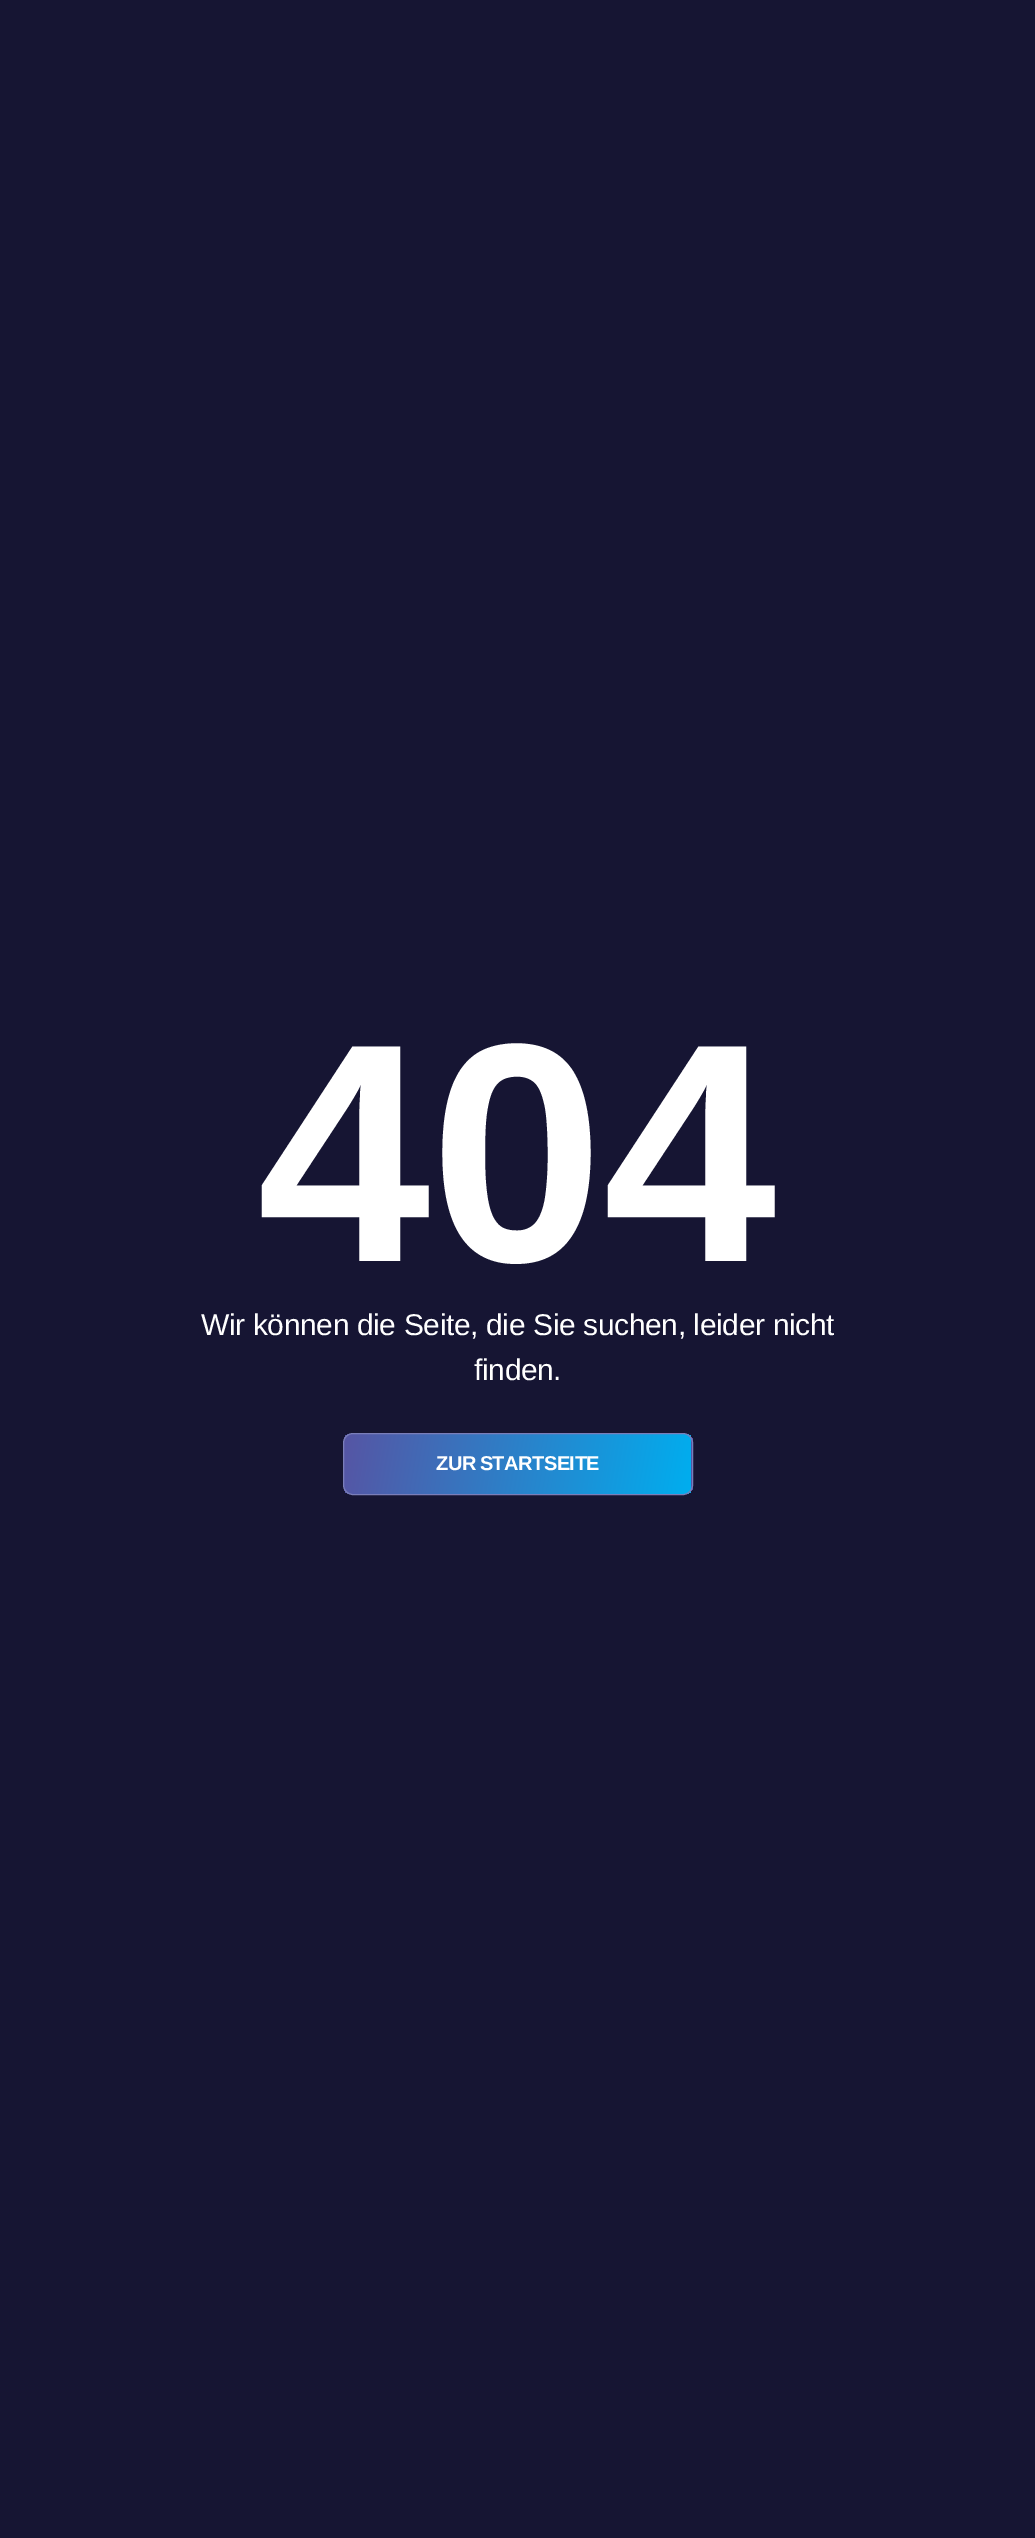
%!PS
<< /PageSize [1035 2538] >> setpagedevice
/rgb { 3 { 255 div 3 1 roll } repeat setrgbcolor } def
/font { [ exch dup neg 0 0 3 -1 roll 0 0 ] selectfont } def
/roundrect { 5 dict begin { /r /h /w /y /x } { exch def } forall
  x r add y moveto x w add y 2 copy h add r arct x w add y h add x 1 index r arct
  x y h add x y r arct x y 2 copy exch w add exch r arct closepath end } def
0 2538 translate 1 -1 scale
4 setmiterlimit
22 21 51 rgb
0 0 1035 2538 rectfill
gsave
343 1433 350 62 10 roundrect clip newpath
gsave 344 1434 moveto 691 1434 lineto 691 1494 lineto 344 1494 lineto closepath clip newpath
<< /ShadingType 2 /ColorSpace /DeviceRGB /Coords [691 1494 344 1433] /Extend [true true] /Function << /FunctionType 2 /Domain [0 1] /C0 [0 0.682 0.937] /C1 [0.337 0.333 0.643] /N 1 >> >> shfill grestore
gsave 691 1434 moveto 693 1434 lineto 693 1494 lineto 691 1494 lineto closepath clip newpath
<< /ShadingType 2 /ColorSpace /DeviceRGB /Coords [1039 1494 691 1433] /Extend [true true] /Function << /FunctionType 2 /Domain [0 1] /C0 [0 0.682 0.937] /C1 [0.337 0.333 0.643] /N 1 >> >> shfill grestore
grestore
122 126 185 rgb
343.5 1433.5 349 61 9.5 roundrect stroke
/LiberationSans-Bold 312 font
255 255 255 rgb
257 1261 moveto -0.38 0 (404) ashow
/LiberationSans-Regular 30 font
201 1335 moveto -0.38 0 (Wir können die Seite, die Sie suchen, leider nicht) ashow
474 1380 moveto -0.38 0 (finden.) ashow
/LiberationSans-Bold 20 font
436 1470 moveto -1 0 32 -0.5 0 (ZUR STARTSEITE) awidthshow
showpage
